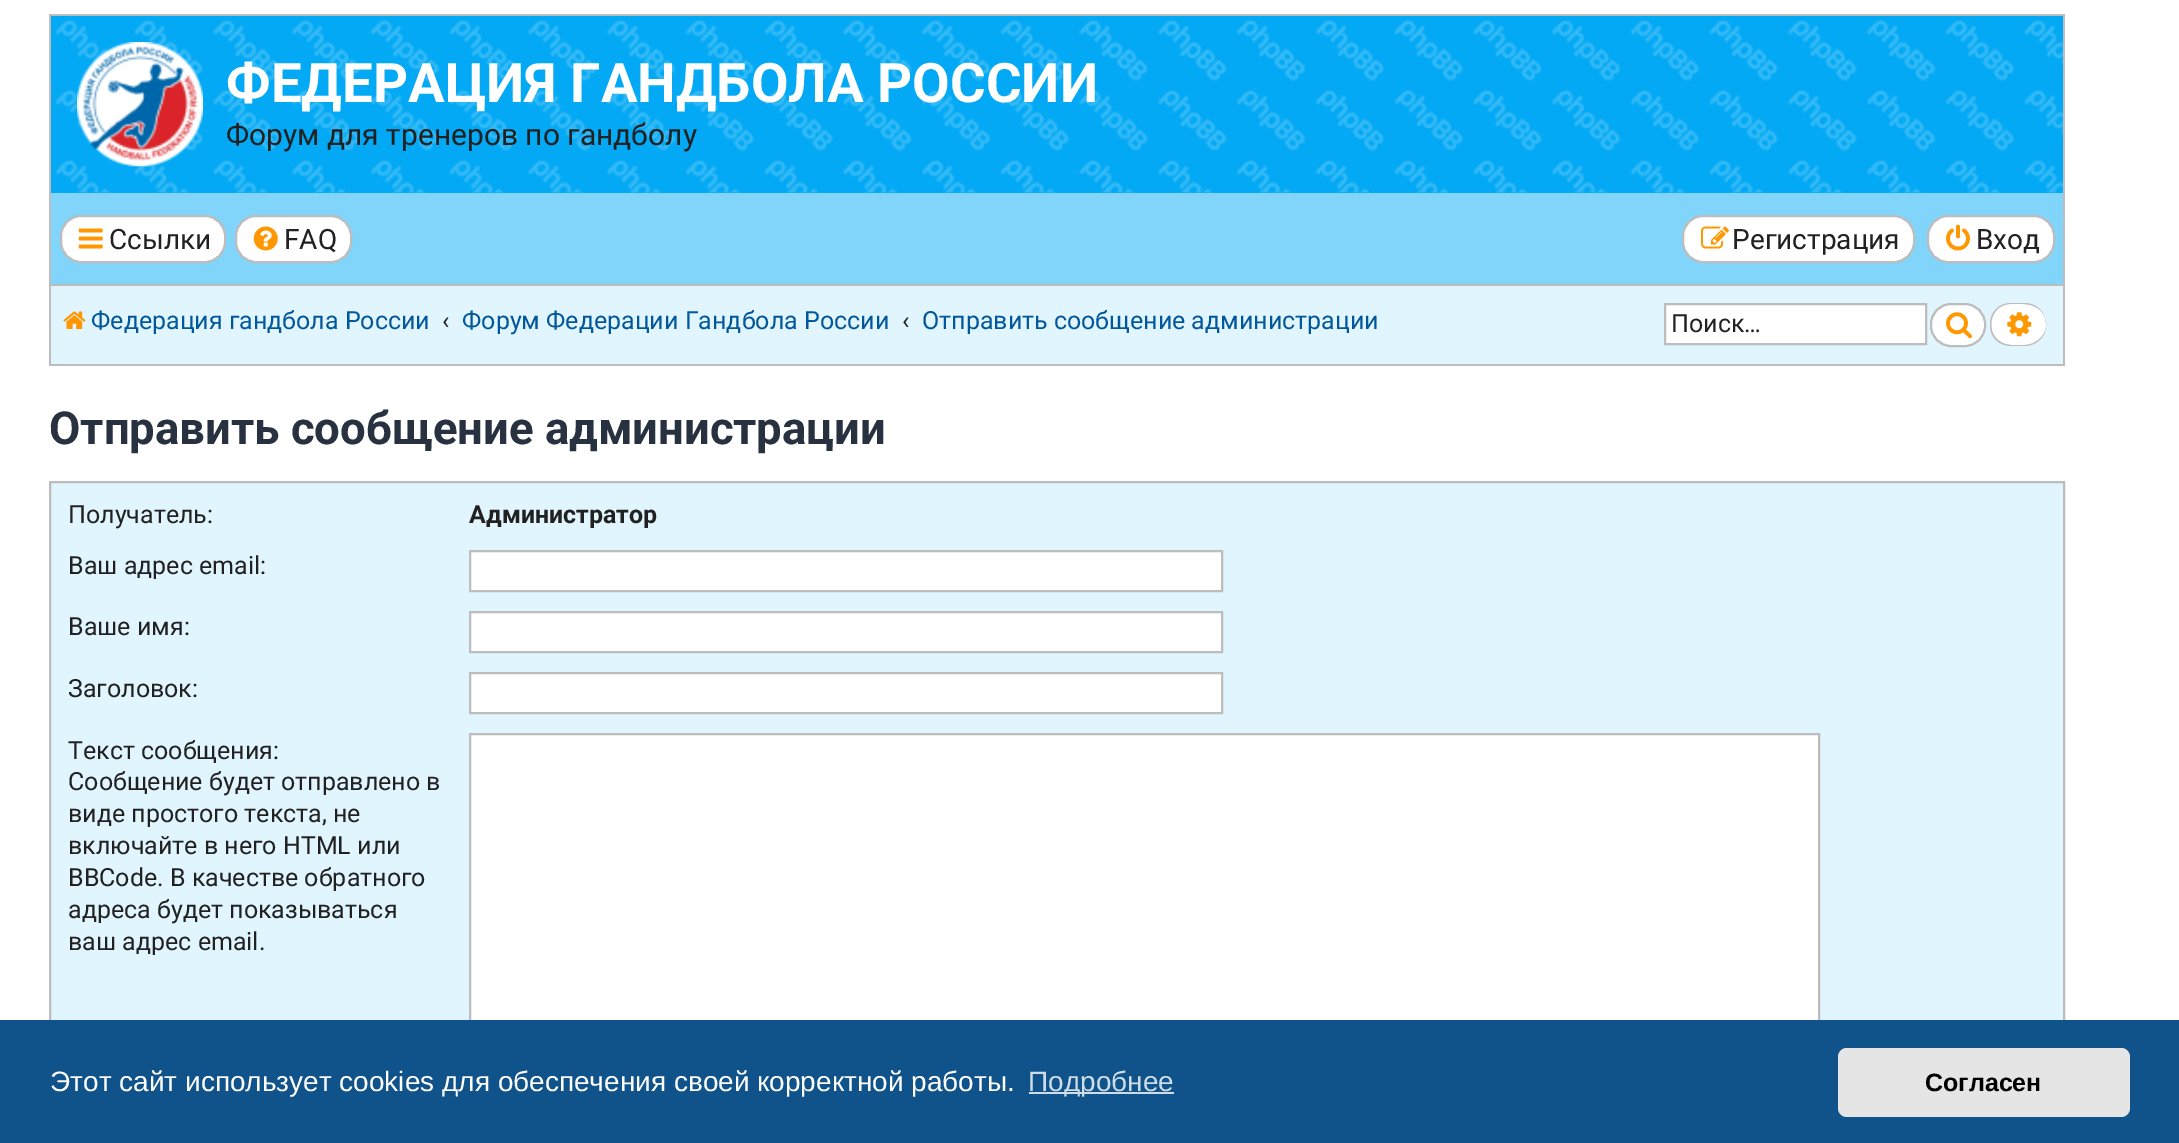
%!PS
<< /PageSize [2179 1143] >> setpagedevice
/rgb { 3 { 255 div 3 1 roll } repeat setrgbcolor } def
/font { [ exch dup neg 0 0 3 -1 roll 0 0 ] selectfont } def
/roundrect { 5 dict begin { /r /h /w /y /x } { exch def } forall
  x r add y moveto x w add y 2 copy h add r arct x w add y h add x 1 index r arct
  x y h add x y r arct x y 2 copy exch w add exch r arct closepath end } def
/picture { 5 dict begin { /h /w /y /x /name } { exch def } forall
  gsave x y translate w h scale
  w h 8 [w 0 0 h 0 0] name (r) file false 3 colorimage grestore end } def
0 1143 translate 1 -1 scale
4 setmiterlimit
255 255 255 rgb
0 0 2179 1143 rectfill
3 169 244 rgb
51 16 2012 177 rectfill
(img/1.rgb) 55 20 2008 173 picture
[
  [49 14 2016 2 189 189 189]
  [2063 14 2 352 189 189 189]
  [49 14 2 179 189 189 189]
] { aload pop rgb rectfill } forall
(img/2.rgb) 77 42 126 125 picture
[
  [51 193 2012 91 129 212 250]
  [49 364 2016 2 189 189 189]
  [49 193 2 173 189 189 189]
] { aload pop rgb rectfill } forall
255 255 255 rgb
61 216 164 46 20 roundrect gsave fill grestore
189 189 189 rgb
2 setlinewidth
stroke
(img/3.rgb) 78 228 25 21 picture
255 255 255 rgb
236 216 115 46 20 roundrect gsave fill grestore
189 189 189 rgb
stroke
(img/4.rgb) 253 226 25 25 picture
255 255 255 rgb
1683 216 231 46 20 roundrect gsave fill grestore
189 189 189 rgb
stroke
(img/5.rgb) 1701 226 28 23 picture
255 255 255 rgb
1928 216 126 46 20 roundrect gsave fill grestore
189 189 189 rgb
stroke
(img/6.rgb) 1946 224 24 27 picture
225 245 254 rgb
51 286 2012 78 rectfill
189 189 189 rgb
51 284 2012 2 rectfill
(img/7.rgb) 63 311 23 18 picture
255 255 255 rgb
1665 304 moveto 1926 304 lineto 1926 344 lineto 1665 344 lineto closepath gsave fill grestore
189 189 189 rgb
stroke
255 255 255 rgb
1931 304 54 42 20 roundrect gsave fill grestore
189 189 189 rgb
stroke
(img/8.rgb) 1946 312 26 27 picture
255 255 255 rgb
2011 304 moveto 2018 304 2026 303 2033 306 curveto 2054 314 2049 343 2025 345 curveto 2019 345 2009 346 2003 343 curveto 1984 335 1989 304 2011 304 curveto closepath fill
189 189 189 rgb
2011 303 moveto 2025 303 lineto 2036 303 2046 312 2046 324 curveto 2046 326 lineto 2046 337 2036 346 2025 346 curveto 2011 346 lineto 1999 346 1990 337 1990 326 curveto 1990 324 lineto 1990 312 1999 303 2011 303 curveto closepath 2011 304 moveto 2018 304 2026 303 2033 306 curveto 2054 314 2049 343 2025 345 curveto 2019 345 2009 346 2003 343 curveto 1984 335 1989 304 2011 304 curveto closepath eofill
(img/9.rgb) 2007 312 25 25 picture
225 245 254 rgb
51 483 2012 537 rectfill
189 189 189 rgb
50 482 2014 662 rectstroke
255 255 255 rgb
470 551 moveto 1222 551 lineto 1222 591 lineto 470 591 lineto closepath gsave fill grestore
189 189 189 rgb
stroke
255 255 255 rgb
470 612 moveto 1222 612 lineto 1222 652 lineto 470 652 lineto closepath gsave fill grestore
189 189 189 rgb
stroke
255 255 255 rgb
470 673 moveto 1222 673 lineto 1222 713 lineto 470 713 lineto closepath gsave fill grestore
189 189 189 rgb
stroke
255 255 255 rgb
471 735 1347 285 rectfill
189 189 189 rgb
470 734 1349 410 rectstroke
15 83 138 rgb
0 1020 2179 123 rectfill
207 221 232 rgb
1029 1092 145 2 rectfill
229 229 229 rgb
1838 1048 292 69 9 roundrect fill
/Roboto-Bold 54.6 font
255 255 255 rgb
226 102 moveto (ФЕДЕРАЦИЯ ГАНДБОЛА РОССИИ) show
/Roboto-Regular 30 font
33 33 33 rgb
226 145 moveto (Форум для тренеров по гандболу) show
/Roboto-Regular 28 font
[
  [(Ссылки) 109 249]
  [(FAQ) 284 249]
  [(Регистрация) 1732 249]
  [(Вход) 1976 249]
] { aload pop moveto show } forall
/Roboto-Regular 25 font
1 87 155 rgb
91 329 moveto (Федерация гандбола России) show
33 33 33 rgb
442 329 moveto (‹) show
1 87 155 rgb
462 329 moveto (Форум Федерации Гандбола России) show
33 33 33 rgb
902 329 moveto (‹) show
1 87 155 rgb
922 329 moveto (Отправить сообщение администрации) show
33 33 33 rgb
1671 332 moveto (Поиск…) show
/Roboto-Bold 45.5 font
40 49 63 rgb
49 444 moveto (Отправить сообщение администрации) show
/Roboto-Regular 25 font
33 33 33 rgb
68 523 moveto (Получатель:) show
/Roboto-Bold 25 font
469 523 moveto (Администратор) show
/Roboto-Regular 25 font
[
  [(Ваш адрес email:) 68 574]
  [(Ваше имя:) 68 635]
  [(Заголовок:) 68 697]
  [(Текст сообщения:) 68 759]
  [(Сообщение будет отправлено в) 68 790]
  [(виде простого текста, не) 68 822]
  [(включайте в него HTML или) 68 854]
  [(BBCode. В качестве обратного) 68 886]
  [(адреса будет показываться) 68 918]
  [(ваш адрес email.) 68 950]
] { aload pop moveto show } forall
/LiberationSans-Regular 28 font
255 255 255 rgb
50 1091 moveto (Этот сайт использует cookies для обеспечения своей корректной работы.) show
207 221 232 rgb
1028 1091 moveto (Подробнее) show
/LiberationSans-Bold 25 font
0 0 0 rgb
1925 1091 moveto (Согласен) show
showpage
